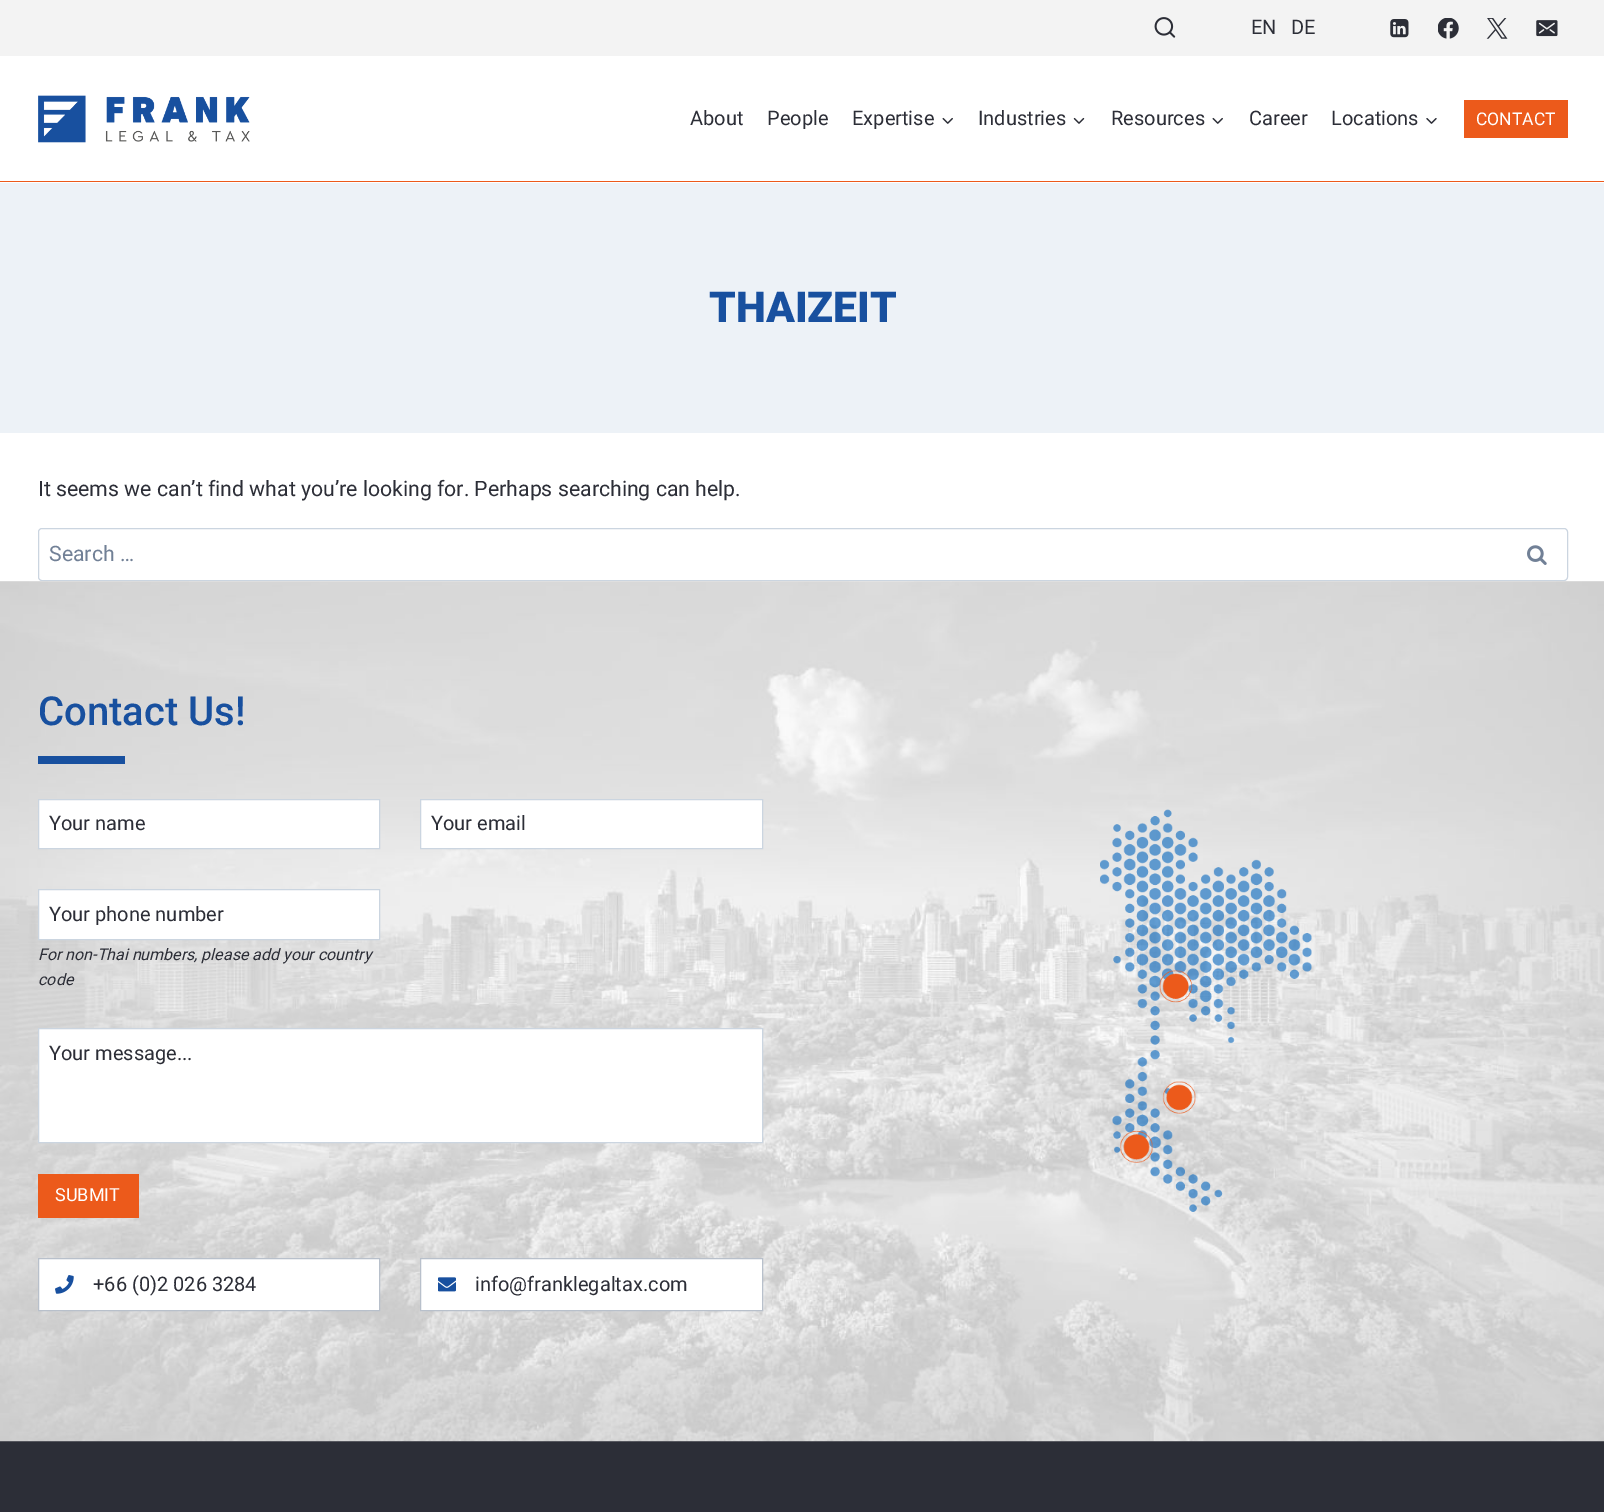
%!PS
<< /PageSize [1604 1512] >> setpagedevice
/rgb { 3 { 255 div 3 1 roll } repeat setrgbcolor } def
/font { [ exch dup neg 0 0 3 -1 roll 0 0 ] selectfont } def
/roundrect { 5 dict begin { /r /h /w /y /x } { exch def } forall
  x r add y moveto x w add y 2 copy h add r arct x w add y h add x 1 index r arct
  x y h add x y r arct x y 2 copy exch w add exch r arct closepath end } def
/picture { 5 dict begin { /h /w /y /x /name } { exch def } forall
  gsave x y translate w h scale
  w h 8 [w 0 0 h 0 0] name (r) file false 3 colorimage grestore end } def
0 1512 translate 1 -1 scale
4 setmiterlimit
255 255 255 rgb
0 0 1604 1512 rectfill
243 243 243 rgb
0 0 1604 56 rectfill
(img/1.rgb) 1154 17 22 21 picture
(img/2.rgb) 1390 19 19 19 picture
(img/3.rgb) 1438 18 21 21 picture
(img/4.rgb) 1486 18 22 21 picture
(img/5.rgb) 1536 20 22 17 picture
236 90 27 rgb
0 181 1604 1 rectfill
(img/6.rgb) 38 95 212 48 picture
(img/7.rgb) 942 117 11 7 picture
(img/8.rgb) 1073 117 12 7 picture
(img/7.rgb) 1212 117 11 7 picture
(img/9.rgb) 1426 118 11 6 picture
1464 100 104 38 rectfill
237 242 247 rgb
0 183 1604 250 rectfill
203 213 224 rgb
38.5 528.5 1529 52 3.5 roundrect stroke
(img/10.rgb) 1527 545 20 20 picture
44 46 55 rgb
0 1441 1604 71 rectfill
(img/11.rgb) 0 581 1604 861 picture
24 80 159 rgb
38 756 87 8 rectfill
255 255 255 rgb
38.5 799.5 moveto 379.5 799.5 lineto 379.5 848.5 lineto 38.5 848.5 lineto closepath gsave fill grestore
203 213 224 rgb
stroke
255 255 255 rgb
420.5 799.5 moveto 762.5 799.5 lineto 762.5 848.5 lineto 420.5 848.5 lineto closepath gsave fill grestore
203 213 224 rgb
stroke
255 255 255 rgb
38.5 889.5 moveto 379.5 889.5 lineto 379.5 939.5 lineto 38.5 939.5 lineto closepath gsave fill grestore
203 213 224 rgb
stroke
255 255 255 rgb
38.5 1028.5 moveto 762.5 1028.5 lineto 762.5 1142.5 lineto 38.5 1142.5 lineto closepath gsave fill grestore
203 213 224 rgb
stroke
236 90 27 rgb
38 1174 101 44 rectfill
255 255 255 rgb
38.5 1258.5 moveto 379.5 1258.5 lineto 379.5 1310.5 lineto 38.5 1310.5 lineto closepath gsave fill grestore
184 192 203 rgb
stroke
(img/12.rgb) 55 1275 19 19 picture
255 255 255 rgb
420.5 1258.5 moveto 762.5 1258.5 lineto 762.5 1310.5 lineto 420.5 1310.5 lineto closepath gsave fill grestore
184 192 203 rgb
stroke
(img/13.rgb) 438 1277 18 15 picture
(img/14.rgb) 1100 809 212 403 picture
/Roboto-Regular 20 font
44 46 55 rgb
[
  [(EN) 1251 34]
  [(DE) 1291 34]
  [(About) 690 125]
  [(People) 767 125]
  [(Expertise) 852 125]
  [(Industries) 978 125]
  [(Resources) 1111 125]
  [(Career) 1249 125]
  [(Locations) 1331 125]
] { aload pop moveto show } forall
/Roboto-Regular 17.5 font
255 255 255 rgb
1476 125 moveto (CONTACT) show
/Roboto-Black 42.5 font
24 80 159 rgb
709 322 moveto (THAIZEIT) show
/Roboto-Regular 21.25 font
44 46 55 rgb
38 496 moveto (It seems we can’t find what you’re looking for. Perhaps searching can help.) show
113 128 150 rgb
49 561 moveto (Search …) show
/Roboto-Medium 40 font
24 80 159 rgb
38 725 moveto (Contact Us!) show
/Roboto-Regular 20 font
44 46 55 rgb
[
  [(Your name) 49 830]
  [(Your email) 431 830]
  [(Your phone number) 49 921]
] { aload pop moveto show } forall
/Roboto-Italic 16 font
38 960 moveto (For non-Thai numbers, please add your country) show
38 985 moveto (code) show
/Roboto-Regular 20 font
49 1060 moveto (Your message...) show
/Roboto-Regular 18 font
255 255 255 rgb
55 1201 moveto (SUBMIT) show
/Roboto-Regular 20 font
44 46 55 rgb
93 1291 moveto (+66 \(0\)2 026 3284) show
475 1291 moveto (info@franklegaltax.com) show
showpage
